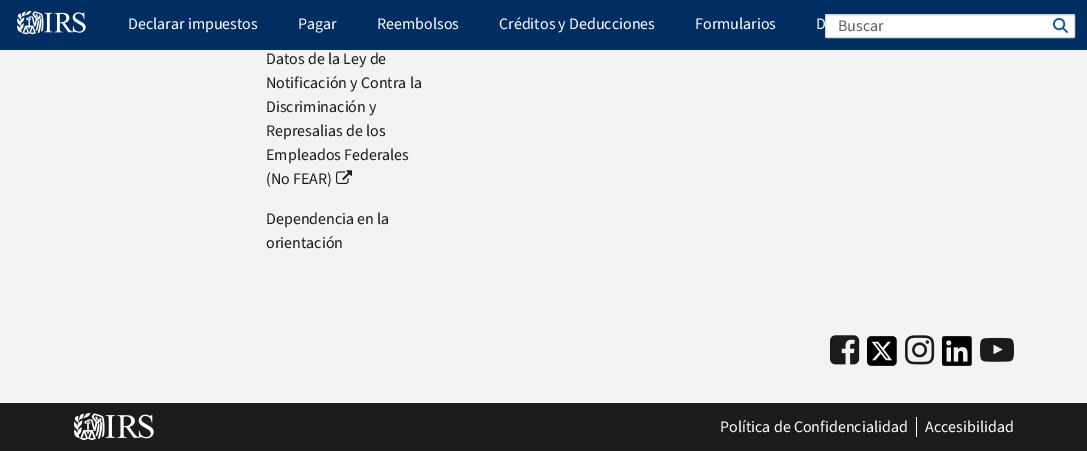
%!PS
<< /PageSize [1087 452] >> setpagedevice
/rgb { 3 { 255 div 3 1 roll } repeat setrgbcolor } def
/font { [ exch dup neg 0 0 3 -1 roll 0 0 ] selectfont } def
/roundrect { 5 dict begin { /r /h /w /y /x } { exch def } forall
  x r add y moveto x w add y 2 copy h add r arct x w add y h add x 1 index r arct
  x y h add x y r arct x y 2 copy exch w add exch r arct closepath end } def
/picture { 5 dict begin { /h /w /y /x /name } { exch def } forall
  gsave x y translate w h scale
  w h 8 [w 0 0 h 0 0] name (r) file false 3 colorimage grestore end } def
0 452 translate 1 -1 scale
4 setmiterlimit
255 255 255 rgb
0 0 1087 452 rectfill
0 45 98 rgb
0 0 1087 50 rectfill
(img/1.rgb) 17 11 69 24 picture
255 255 255 rgb
825 14 250 24 2 roundrect fill
236 236 236 rgb
827 16 moveto 1073 16 lineto 1074 16 1074 16 1074 17 curveto 1074 16 1074 15 1073 15 curveto 826 15 lineto 826 17 lineto 826 16 826 16 827 16 curveto closepath fill
214 215 217 rgb
825.5 14.5 249 23 1.5 roundrect stroke
(img/2.rgb) 1053 18 15 15 picture
243 243 243 rgb
0 50 1087 353 rectfill
(img/3.rgb) 336 170 16 14 picture
(img/4.rgb) 830 335 30 30 picture
(img/5.rgb) 867 336 30 30 picture
(img/6.rgb) 905 335 30 30 picture
(img/7.rgb) 942 336 30 30 picture
(img/8.rgb) 980 337 34 25 picture
27 27 27 rgb
0 403 1087 48 rectfill
(img/9.rgb) 74 413 80 27 picture
255 255 255 rgb
916 417 1 20 rectfill
/SourceSans3-Regular 16 font
[
  [(Declarar impuestos) 128 29]
  [(Pagar) 298 29]
  [(Reembolsos) 377 29]
  [(Créditos y Deducciones) 499 29]
  [(Formularios) 695 29]
  [(D) 816 29]
] { aload pop moveto show } forall
91 97 107 rgb
838 31 moveto (Buscar) show
27 27 27 rgb
[
  [(Datos de la Ley de) 266 64]
  [(Notificación y Contra la) 266 88]
  [(Discriminación y) 266 112]
  [(Represalias de los) 266 136]
  [(Empleados Federales) 266 160]
  [(\(No FEAR\)) 266 184]
  [(Dependencia en la) 266 224]
  [(orientación) 266 248]
] { aload pop moveto show } forall
255 255 255 rgb
720 432 moveto (Política de Confidencialidad) show
925 432 moveto (Accesibilidad) show
showpage
